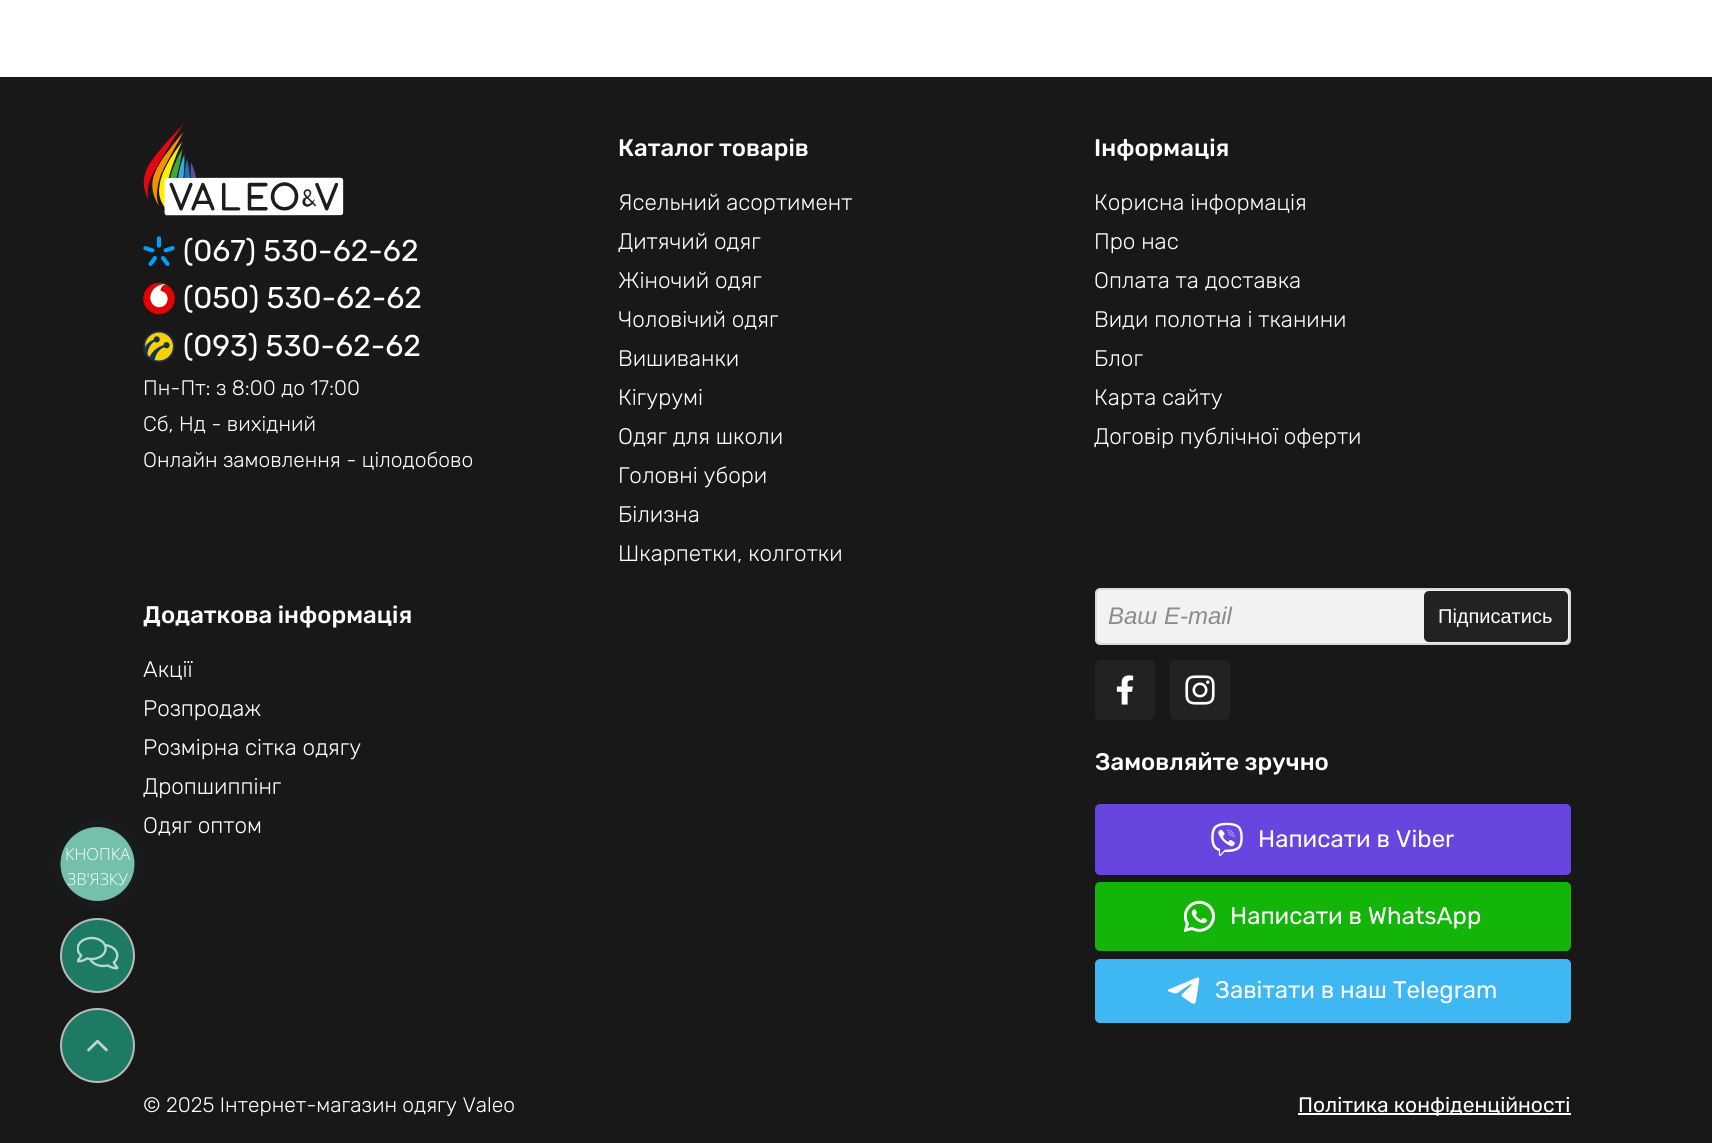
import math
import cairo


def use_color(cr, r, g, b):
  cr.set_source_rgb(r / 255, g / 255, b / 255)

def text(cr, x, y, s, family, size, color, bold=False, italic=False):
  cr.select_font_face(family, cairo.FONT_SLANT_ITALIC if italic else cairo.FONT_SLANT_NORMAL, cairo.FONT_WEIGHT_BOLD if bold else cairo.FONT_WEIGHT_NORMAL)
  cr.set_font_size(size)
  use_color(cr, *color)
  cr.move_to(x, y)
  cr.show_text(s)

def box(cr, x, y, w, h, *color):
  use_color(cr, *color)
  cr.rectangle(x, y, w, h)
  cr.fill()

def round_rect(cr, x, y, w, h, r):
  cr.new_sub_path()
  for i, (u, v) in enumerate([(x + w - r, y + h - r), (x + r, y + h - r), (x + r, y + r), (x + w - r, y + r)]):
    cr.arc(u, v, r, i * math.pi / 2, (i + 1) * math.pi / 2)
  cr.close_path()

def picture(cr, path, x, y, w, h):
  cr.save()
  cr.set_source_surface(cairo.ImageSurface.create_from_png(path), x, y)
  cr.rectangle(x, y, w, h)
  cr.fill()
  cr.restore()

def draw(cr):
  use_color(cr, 255, 255, 255)
  cr.paint()
  box(cr, 0, 77, 1712, 1066, 24, 24, 24)
  picture(cr, "img_01.png", 143, 122, 201, 94)
  picture(cr, "img_02.png", 143, 236, 32, 30)
  picture(cr, "img_03.png", 143, 282, 32, 33)
  picture(cr, "img_04.png", 143, 330, 32, 33)
  use_color(cr, 242, 242, 242)
  round_rect(cr, 1096, 589, 474, 55, 4)
  cr.fill_preserve()
  use_color(cr, 218, 218, 218)
  cr.stroke()
  use_color(cr, 34, 34, 34)
  round_rect(cr, 1424, 591, 144, 51, 5)
  cr.fill()
  round_rect(cr, 1095, 660, 60, 60, 5)
  cr.fill()
  picture(cr, "img_05.png", 1116, 675, 18, 30)
  round_rect(cr, 1170, 660, 60, 60, 5)
  cr.fill()
  picture(cr, "img_06.png", 1185, 675, 30, 30)
  use_color(cr, 105, 69, 224)
  round_rect(cr, 1095, 804, 476, 71, 5)
  cr.fill()
  picture(cr, "img_07.png", 1211, 822, 32, 34)
  use_color(cr, 19, 182, 8)
  round_rect(cr, 1095, 882, 476, 69, 5)
  cr.fill()
  picture(cr, "img_08.png", 1184, 900, 31, 33)
  use_color(cr, 62, 183, 243)
  round_rect(cr, 1095, 959, 476, 64, 5)
  cr.fill()
  picture(cr, "img_09.png", 1167, 977, 33, 27)
  box(cr, 1298, 1113, 273, 2, 255, 255, 255)
  use_color(cr, 29, 122, 100)
  cr.arc(97.5, 955.5, 36.5, 0, 2 * math.pi)
  cr.fill_preserve()
  use_color(cr, 186, 186, 186)
  cr.stroke()
  picture(cr, "img_10.png", 77, 936, 42, 34)
  use_color(cr, 29, 122, 100)
  cr.arc(97.5, 1045.5, 36.5, 0, 2 * math.pi)
  cr.fill_preserve()
  use_color(cr, 186, 186, 186)
  cr.stroke()
  picture(cr, "img_11.png", 87, 1040, 21, 12)
  text(cr, 183, 261, "(067) 530-62-62", "Rubik", 30, (255, 255, 255))
  text(cr, 183, 308, "(050) 530-62-62", "Rubik", 30, (255, 255, 255))
  text(cr, 183, 356, "(093) 530-62-62", "Rubik", 30, (255, 255, 255))
  text(cr, 143, 395, "Пн-Пт: з 8:00 до 17:00", "Rubik Light", 21, (255, 255, 255))
  text(cr, 143, 431, "Сб, Нд - вихідний", "Rubik Light", 21, (255, 255, 255))
  text(cr, 143, 467, "Онлайн замовлення - цілодобово", "Rubik Light", 21, (255, 255, 255))
  text(cr, 618, 156, "Каталог товарів", "Rubik Medium", 24, (255, 255, 255))
  text(cr, 618, 210, "Ясельний асортимент", "Rubik Light", 22.5, (255, 255, 255))
  text(cr, 618, 249, "Дитячий одяг", "Rubik Light", 22.5, (255, 255, 255))
  text(cr, 618, 288, "Жіночий одяг", "Rubik Light", 22.5, (255, 255, 255))
  text(cr, 618, 327, "Чоловічий одяг", "Rubik Light", 22.5, (255, 255, 255))
  text(cr, 618, 366, "Вишиванки", "Rubik Light", 22.5, (255, 255, 255))
  text(cr, 618, 405, "Кігурумі", "Rubik Light", 22.5, (255, 255, 255))
  text(cr, 618, 444, "Одяг для школи", "Rubik Light", 22.5, (255, 255, 255))
  text(cr, 618, 483, "Головні убори", "Rubik Light", 22.5, (255, 255, 255))
  text(cr, 618, 522, "Білизна", "Rubik Light", 22.5, (255, 255, 255))
  text(cr, 618, 561, "Шкарпетки, колготки", "Rubik Light", 22.5, (255, 255, 255))
  text(cr, 1094, 156, "Інформація", "Rubik Medium", 24, (255, 255, 255))
  text(cr, 1094, 210, "Корисна інформація", "Rubik Light", 22.5, (255, 255, 255))
  text(cr, 1094, 249, "Про нас", "Rubik Light", 22.5, (255, 255, 255))
  text(cr, 1094, 288, "Оплата та доставка", "Rubik Light", 22.5, (255, 255, 255))
  text(cr, 1094, 327, "Види полотна і тканини", "Rubik Light", 22.5, (255, 255, 255))
  text(cr, 1094, 366, "Блог", "Rubik Light", 22.5, (255, 255, 255))
  text(cr, 1094, 405, "Карта сайту", "Rubik Light", 22.5, (255, 255, 255))
  text(cr, 1094, 444, "Договір публічної оферти", "Rubik Light", 22.5, (255, 255, 255))
  text(cr, 143, 623, "Додаткова інформація", "Rubik Medium", 24, (255, 255, 255))
  text(cr, 143, 677, "Акції", "Rubik Light", 22.5, (255, 255, 255))
  text(cr, 143, 716, "Розпродаж", "Rubik Light", 22.5, (255, 255, 255))
  text(cr, 143, 755, "Розмірна сітка одягу", "Rubik Light", 22.5, (255, 255, 255))
  text(cr, 143, 794, "Дропшиппінг", "Rubik Light", 22.5, (255, 255, 255))
  text(cr, 143, 833, "Одяг оптом", "Rubik Light", 22.5, (255, 255, 255))
  cr.save()
  cr.rectangle(51, 818, 93, 93)
  cr.clip()
  use_color(cr, 25, 26, 28)
  cr.arc(97.5, 864, 46.5, 0, 2 * math.pi)
  cr.fill()
  cr.restore()
  use_color(cr, 116, 192, 171)
  cr.arc(97.5, 864, 37, 0, 2 * math.pi)
  cr.fill()
  text(cr, 67, 885, "ЗВ'ЯЗКУ", "Open Sans Light", 16.5, (255, 255, 255))
  text(cr, 65, 860, "КНОПКА", "Open Sans Light", 16.5, (255, 255, 255))
  text(cr, 1108, 624, "Ваш E-mail", "Liberation Sans", 24, (139, 139, 139), italic=True)
  text(cr, 1438, 623, "Підписатись", "Liberation Sans", 20, (255, 255, 255))
  text(cr, 1095, 770, "Замовляйте зручно", "Rubik Medium", 24, (255, 255, 255))
  text(cr, 1258, 847, "Написати в Viber", "Rubik", 24, (255, 255, 255))
  text(cr, 1230, 924, "Написати в WhatsApp", "Rubik", 24, (255, 255, 255))
  text(cr, 1215, 998, "Завітати в наш Telegram", "Rubik", 24, (255, 255, 255))
  text(cr, 143, 1112, "© 2025 Інтернет-магазин одягу Valeo", "Rubik Light", 21, (255, 255, 255))
  text(cr, 1298, 1112, "Політика конфіденційності", "Rubik", 21, (255, 255, 255))


surface = cairo.ImageSurface(cairo.FORMAT_RGB24, 1712, 1143)
cr = cairo.Context(surface)
options = cairo.FontOptions()
options.set_hint_metrics(cairo.HINT_METRICS_OFF)
options.set_hint_style(cairo.HINT_STYLE_NONE)
cr.set_font_options(options)
cr.set_miter_limit(4)
draw(cr)
surface.write_to_png("out.png")
